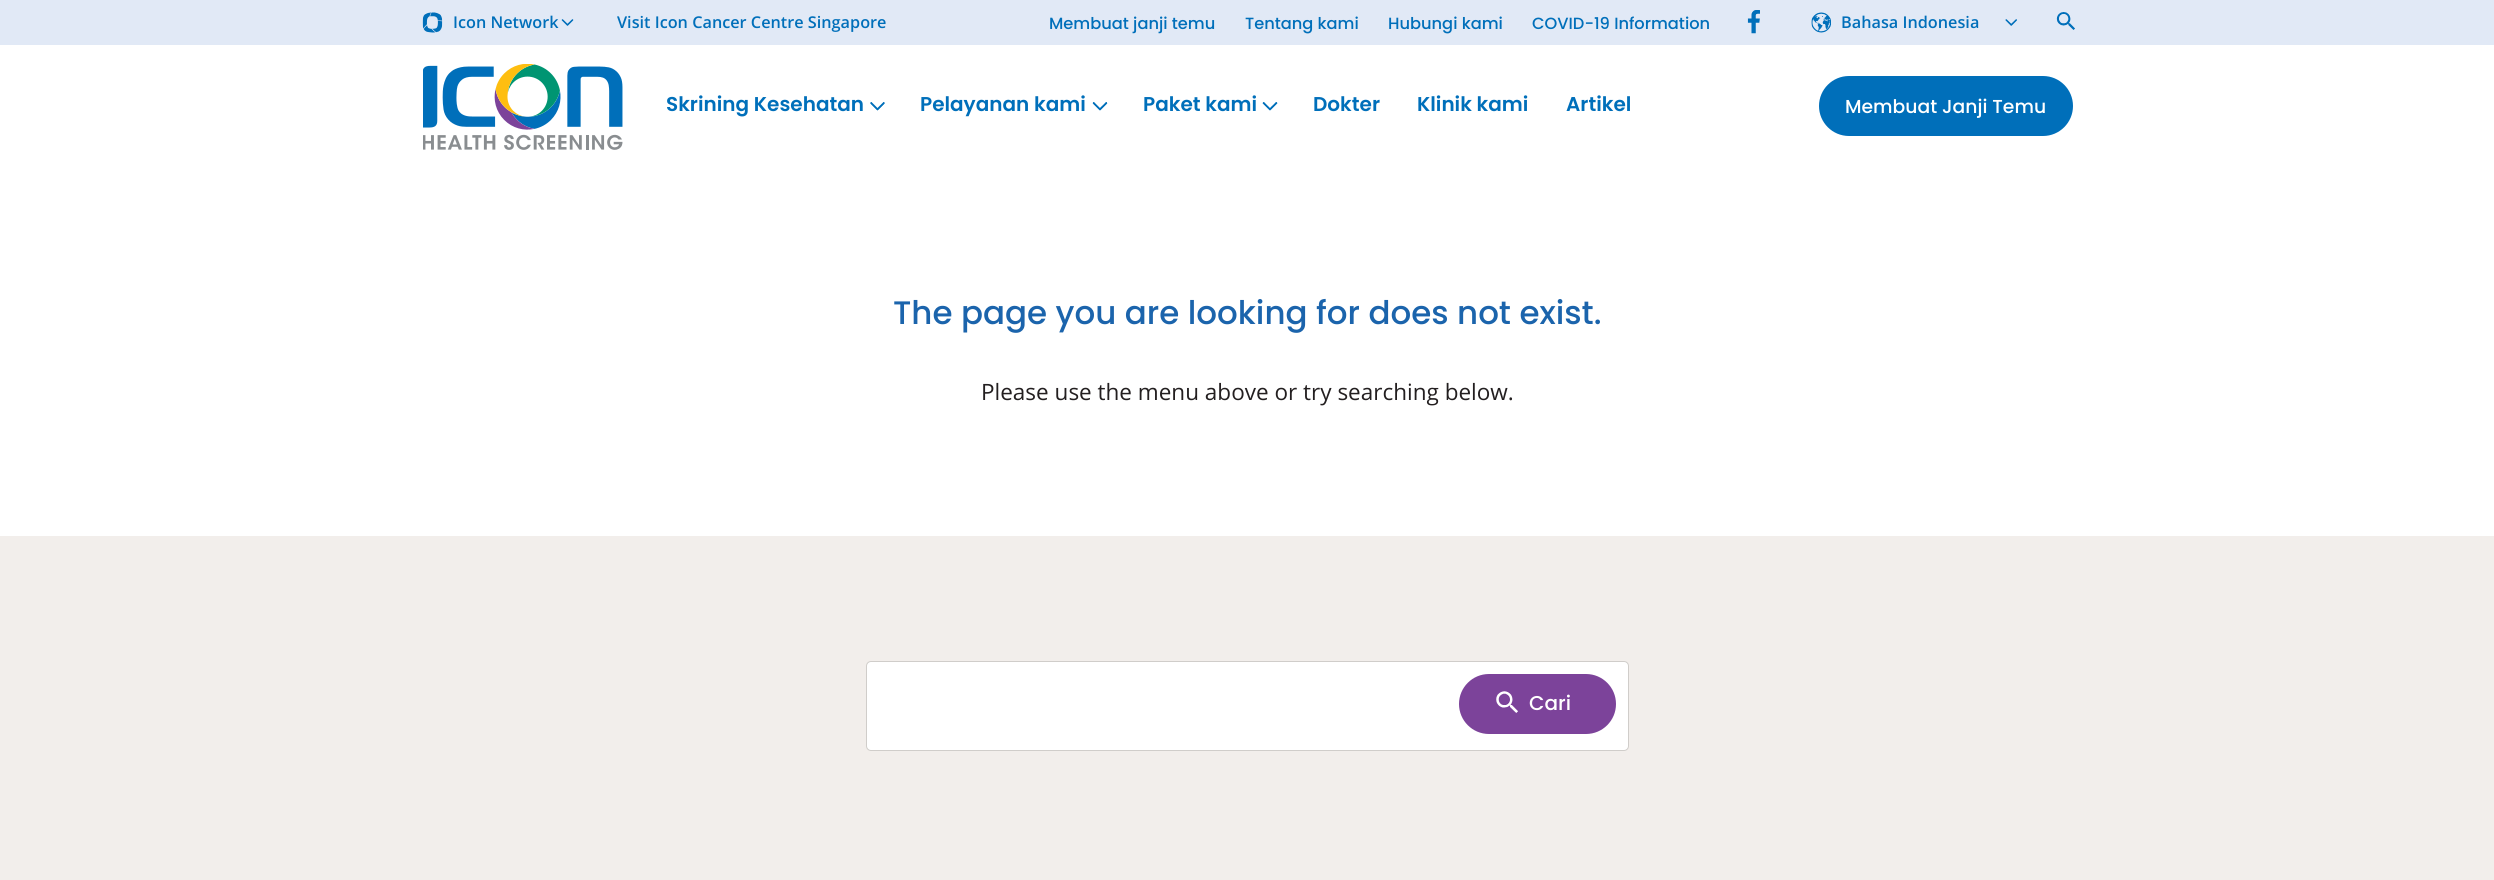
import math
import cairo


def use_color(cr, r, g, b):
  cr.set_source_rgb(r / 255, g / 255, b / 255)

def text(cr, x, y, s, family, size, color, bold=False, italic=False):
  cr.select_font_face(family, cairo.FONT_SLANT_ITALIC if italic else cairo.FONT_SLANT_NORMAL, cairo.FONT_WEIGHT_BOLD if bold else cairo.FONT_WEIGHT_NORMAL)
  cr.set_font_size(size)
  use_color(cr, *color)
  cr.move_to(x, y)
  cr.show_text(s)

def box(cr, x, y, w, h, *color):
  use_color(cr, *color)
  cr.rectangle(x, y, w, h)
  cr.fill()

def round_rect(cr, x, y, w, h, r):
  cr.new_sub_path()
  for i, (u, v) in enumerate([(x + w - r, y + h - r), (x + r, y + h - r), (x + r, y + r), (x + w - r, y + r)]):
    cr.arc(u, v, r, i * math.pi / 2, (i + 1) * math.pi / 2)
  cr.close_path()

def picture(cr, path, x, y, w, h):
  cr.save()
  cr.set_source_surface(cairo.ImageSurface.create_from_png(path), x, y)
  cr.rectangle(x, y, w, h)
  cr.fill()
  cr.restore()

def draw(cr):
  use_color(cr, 255, 255, 255)
  cr.paint()
  box(cr, 0, 0, 2494, 45, 225, 233, 246)
  picture(cr, "img_01.png", 422, 12, 21, 21)
  picture(cr, "img_02.png", 561, 19, 13, 7)
  picture(cr, "img_03.png", 1747, 10, 13, 24)
  picture(cr, "img_04.png", 1811, 12, 20, 21)
  picture(cr, "img_05.png", 2005, 19, 12, 7)
  picture(cr, "img_06.png", 2056, 12, 19, 18)
  picture(cr, "img_07.png", 423, 64, 200, 86)
  picture(cr, "img_08.png", 870, 102, 15, 9)
  picture(cr, "img_09.png", 1092, 102, 16, 9)
  picture(cr, "img_10.png", 1262, 102, 16, 9)
  use_color(cr, 0, 111, 186)
  round_rect(cr, 1819, 76, 254, 60, 30)
  cr.fill()
  box(cr, 0, 536, 2494, 344, 242, 238, 235)
  use_color(cr, 255, 255, 255)
  round_rect(cr, 866.5, 661.5, 762, 89, 4.5)
  cr.fill_preserve()
  use_color(cr, 208, 205, 202)
  cr.set_line_width(1)
  cr.stroke()
  use_color(cr, 124, 67, 154)
  round_rect(cr, 1459, 674, 157, 60, 30)
  cr.fill()
  picture(cr, "img_11.png", 1496, 691, 22, 22)
  text(cr, 453, 28, "Icon Network", "Open Sans SemiBold", 16.25, (0, 111, 186))
  text(cr, 617, 28, "Visit Icon Cancer Centre Singapore", "Open Sans SemiBold", 16.25, (0, 111, 186))
  text(cr, 1049, 29, "Membuat janji temu", "Poppins Medium", 16.25, (0, 111, 186))
  text(cr, 1245, 29, "Tentang kami", "Poppins Medium", 16.25, (0, 111, 186))
  text(cr, 1388, 29, "Hubungi kami", "Poppins Medium", 16.25, (0, 111, 186))
  text(cr, 1532, 29, "COVID-19 Information", "Poppins Medium", 16.25, (0, 111, 186))
  text(cr, 1841, 28, "Bahasa Indonesia", "Open Sans SemiBold", 16.25, (0, 111, 186))
  text(cr, 666, 111, "Skrining Kesehatan", "Poppins SemiBold", 20, (0, 111, 186))
  text(cr, 920, 111, "Pelayanan kami", "Poppins SemiBold", 20, (0, 111, 186))
  text(cr, 1143, 111, "Paket kami", "Poppins SemiBold", 20, (0, 111, 186))
  text(cr, 1313, 111, "Dokter", "Poppins SemiBold", 20, (0, 111, 186))
  text(cr, 1417, 111, "Klinik kami", "Poppins SemiBold", 20, (0, 111, 186))
  text(cr, 1566, 111, "Artikel", "Poppins SemiBold", 20, (0, 111, 186))
  text(cr, 1845, 113, "Membuat Janji Temu", "Poppins Medium", 18.75, (255, 255, 255))
  text(cr, 893, 324, "The page you are looking for does not exist.", "Poppins Medium", 32.5, (27, 100, 172))
  text(cr, 981, 400, "Please use the menu above or try searching below.", "Open Sans", 22.5, (35, 31, 32))
  text(cr, 1529, 710, "Cari", "Poppins Medium", 20, (255, 255, 255))


surface = cairo.ImageSurface(cairo.FORMAT_RGB24, 2494, 880)
cr = cairo.Context(surface)
options = cairo.FontOptions()
options.set_hint_metrics(cairo.HINT_METRICS_OFF)
options.set_hint_style(cairo.HINT_STYLE_NONE)
cr.set_font_options(options)
cr.set_miter_limit(4)
draw(cr)
surface.write_to_png("out.png")
